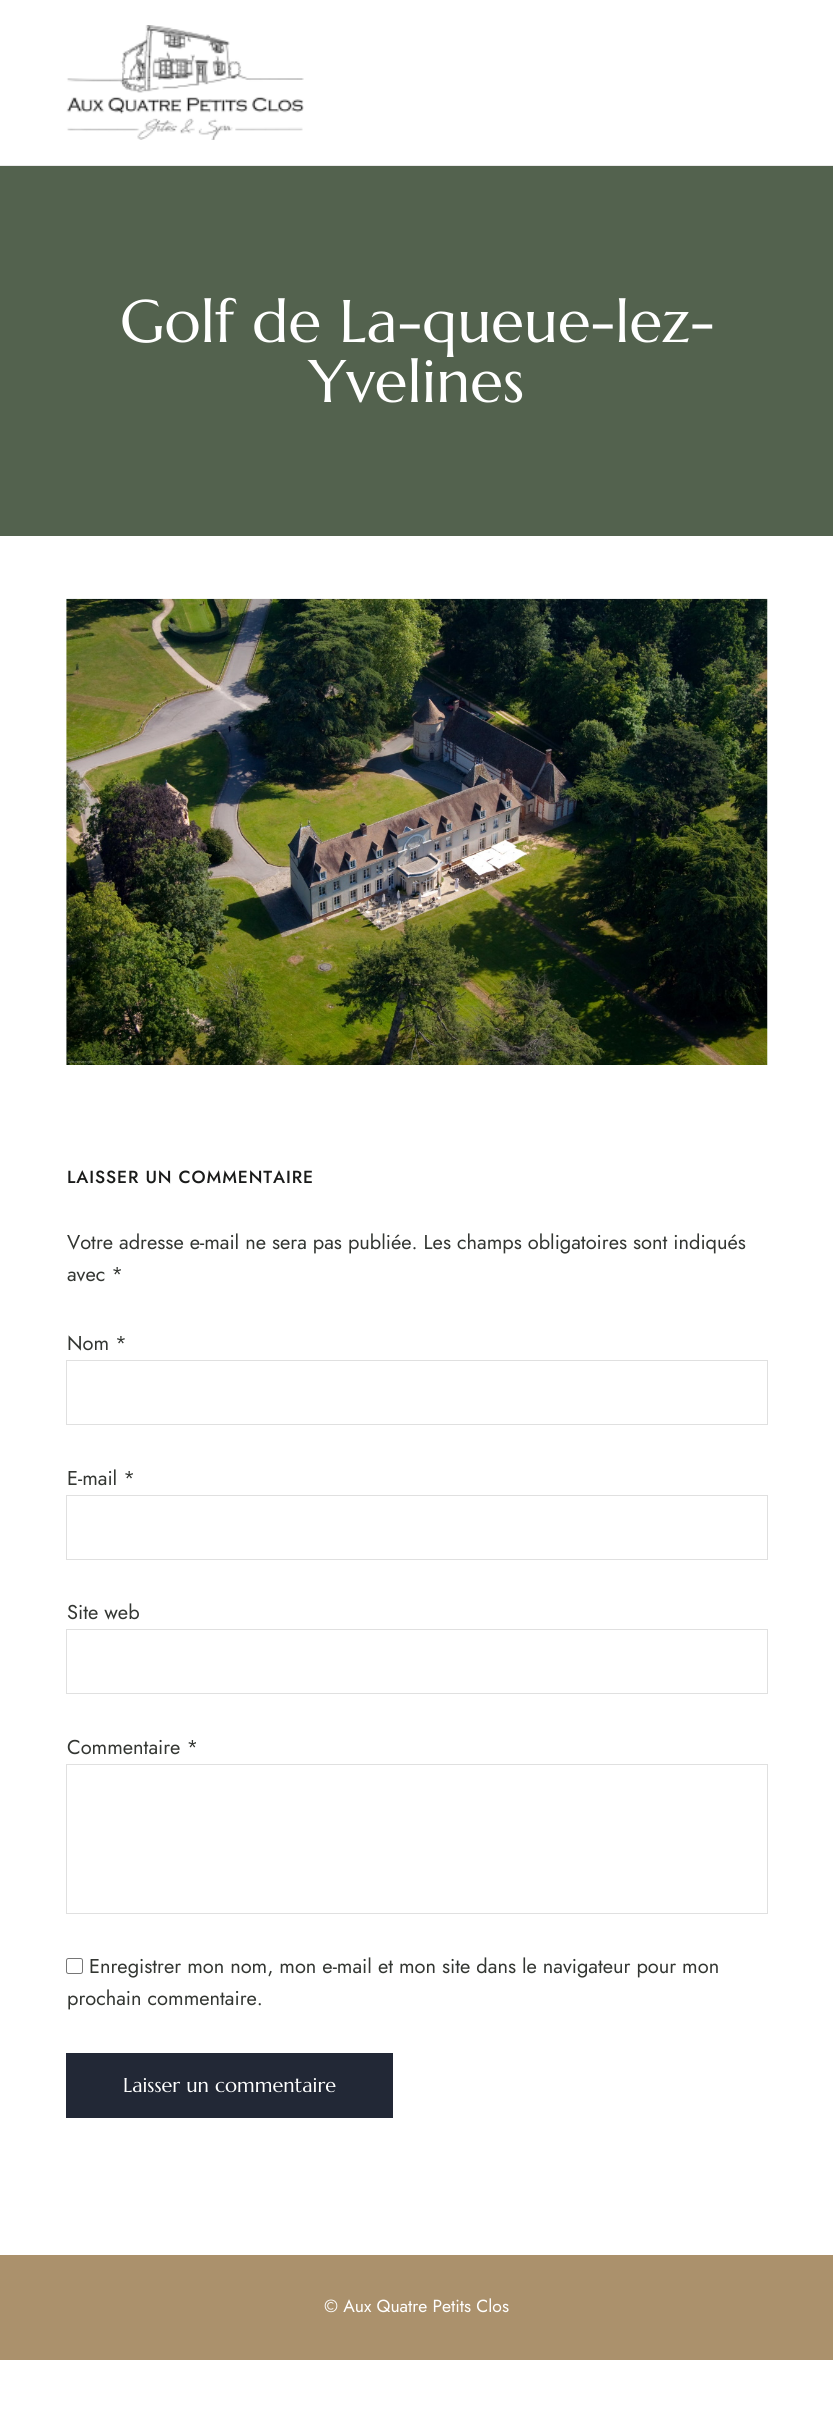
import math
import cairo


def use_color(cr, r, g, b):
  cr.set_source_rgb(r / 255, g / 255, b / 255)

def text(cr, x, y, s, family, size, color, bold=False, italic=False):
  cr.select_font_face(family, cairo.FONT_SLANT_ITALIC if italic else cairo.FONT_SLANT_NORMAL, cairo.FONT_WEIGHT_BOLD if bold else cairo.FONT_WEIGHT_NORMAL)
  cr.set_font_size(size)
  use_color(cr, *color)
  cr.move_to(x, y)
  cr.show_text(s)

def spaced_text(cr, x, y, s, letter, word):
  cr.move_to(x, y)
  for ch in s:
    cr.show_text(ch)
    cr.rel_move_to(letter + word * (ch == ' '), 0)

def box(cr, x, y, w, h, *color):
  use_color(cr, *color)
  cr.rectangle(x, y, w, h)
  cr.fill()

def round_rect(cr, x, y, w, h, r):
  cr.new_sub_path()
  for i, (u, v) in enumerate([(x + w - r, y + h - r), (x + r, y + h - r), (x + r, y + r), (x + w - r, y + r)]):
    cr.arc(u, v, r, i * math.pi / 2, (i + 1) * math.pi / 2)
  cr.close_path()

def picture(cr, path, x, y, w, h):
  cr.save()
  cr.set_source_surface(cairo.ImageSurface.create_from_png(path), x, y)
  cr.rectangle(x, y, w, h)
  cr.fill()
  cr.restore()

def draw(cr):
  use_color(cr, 255, 255, 255)
  cr.paint()
  box(cr, 0, 165, 833, 1, 235, 235, 235)
  picture(cr, "img_01.png", 66, 25, 238, 115)
  box(cr, 0, 166, 833, 370, 83, 98, 78)
  picture(cr, "img_02.png", 66, 598, 702, 467)
  cr.rectangle(66.5, 1360.5, 701, 64)
  use_color(cr, 224, 224, 224)
  cr.set_line_width(1)
  cr.stroke()
  cr.rectangle(66.5, 1495.5, 701, 64)
  cr.stroke()
  cr.rectangle(66.5, 1629.5, 701, 64)
  cr.stroke()
  cr.rectangle(66.5, 1764.5, 701, 149)
  cr.stroke()
  round_rect(cr, 66.5, 1958.5, 16, 15, 2)
  use_color(cr, 118, 118, 118)
  cr.stroke()
  box(cr, 66, 2053, 327, 65, 34, 40, 54)
  box(cr, 0, 2255, 833, 105, 171, 145, 108)
  text(cr, 120, 342, "Golf de La-queue-lez-", "Marcellus", 60, (255, 255, 255))
  text(cr, 309, 402, "Yvelines", "Marcellus", 60, (255, 255, 255))
  cr.select_font_face("Jost Medium")
  cr.set_font_size(17.5)
  use_color(cr, 26, 27, 26)
  spaced_text(cr, 67, 1183, "LAISSER UN COMMENTAIRE", 0.9, 0)
  text(cr, 67, 1249, "Votre adresse e-mail ne sera pas publiée. Les champs obligatoires sont indiqués", "Jost", 20, (51, 54, 50))
  text(cr, 67, 1281, "avec *", "Jost", 20, (51, 54, 50))
  text(cr, 67, 1350, "Nom *", "Jost", 20, (51, 54, 50))
  text(cr, 67, 1485, "E-mail *", "Jost", 20, (51, 54, 50))
  text(cr, 67, 1619, "Site web", "Jost", 20, (51, 54, 50))
  text(cr, 67, 1754, "Commentaire *", "Jost", 20, (51, 54, 50))
  text(cr, 89, 1973, "Enregistrer mon nom, mon e-mail et mon site dans le navigateur pour mon", "Jost", 20, (51, 54, 50))
  text(cr, 67, 2005, "prochain commentaire.", "Jost", 20, (51, 54, 50))
  text(cr, 123, 2092, "Laisser un commentaire", "Marcellus", 20, (255, 255, 255))
  text(cr, 324, 2312, "© Aux Quatre Petits Clos", "Jost", 17.5, (255, 255, 255))


surface = cairo.ImageSurface(cairo.FORMAT_RGB24, 833, 2424)
cr = cairo.Context(surface)
options = cairo.FontOptions()
options.set_hint_metrics(cairo.HINT_METRICS_OFF)
options.set_hint_style(cairo.HINT_STYLE_NONE)
cr.set_font_options(options)
cr.set_miter_limit(4)
draw(cr)
surface.write_to_png("out.png")
